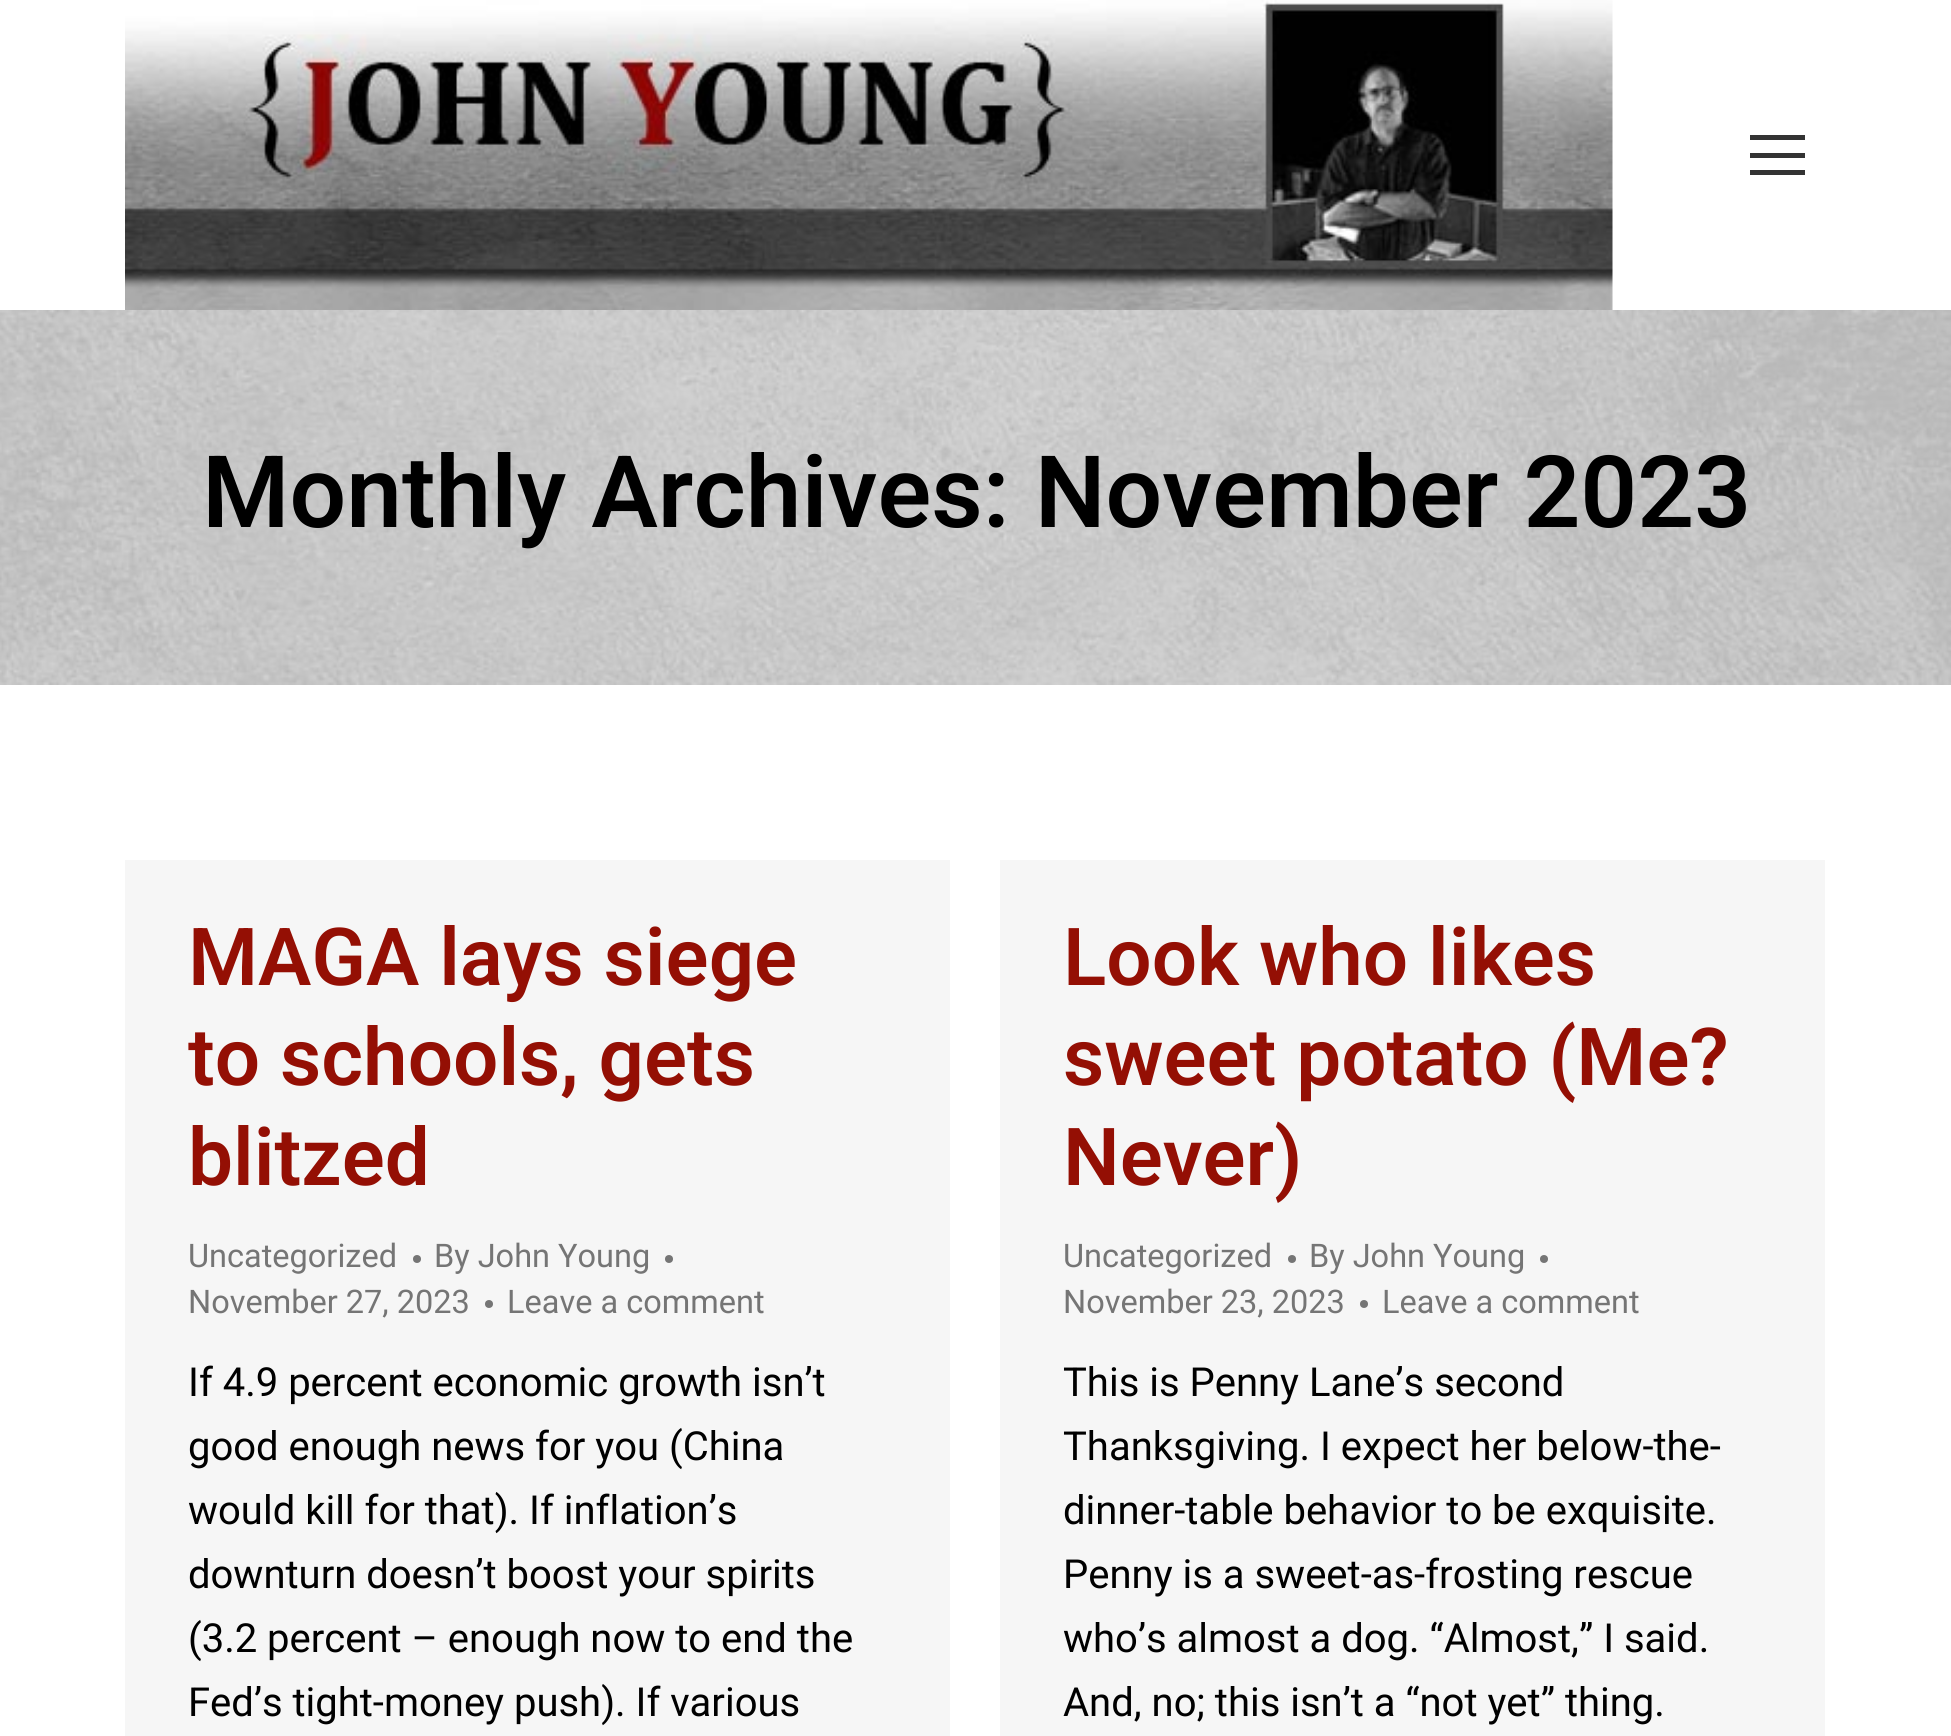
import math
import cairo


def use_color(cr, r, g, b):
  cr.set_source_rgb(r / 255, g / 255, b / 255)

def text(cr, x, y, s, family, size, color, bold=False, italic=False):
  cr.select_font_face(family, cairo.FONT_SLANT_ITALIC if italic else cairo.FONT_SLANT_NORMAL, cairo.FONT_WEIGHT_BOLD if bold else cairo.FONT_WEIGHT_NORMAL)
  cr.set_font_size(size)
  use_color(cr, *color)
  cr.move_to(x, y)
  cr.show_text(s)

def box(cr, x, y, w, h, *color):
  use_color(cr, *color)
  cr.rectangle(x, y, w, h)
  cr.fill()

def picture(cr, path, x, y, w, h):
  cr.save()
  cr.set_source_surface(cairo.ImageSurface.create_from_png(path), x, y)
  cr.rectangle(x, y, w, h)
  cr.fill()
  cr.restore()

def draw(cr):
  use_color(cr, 255, 255, 255)
  cr.paint()
  picture(cr, "img_01.png", 125, 0, 1488, 310)
  box(cr, 1750, 135, 55, 5, 51, 51, 51)
  box(cr, 1750, 153, 55, 5, 51, 51, 51)
  box(cr, 1750, 170, 55, 5, 51, 51, 51)
  picture(cr, "img_02.png", 0, 310, 1951, 375)
  box(cr, 125, 860, 825, 876, 246, 246, 246)
  use_color(cr, 117, 117, 117)
  cr.arc(417, 1259, 4, 0, 2 * math.pi)
  cr.fill()
  cr.arc(669, 1259, 4, 0, 2 * math.pi)
  cr.fill()
  cr.arc(489, 1304, 4, 0, 2 * math.pi)
  cr.fill()
  box(cr, 1000, 860, 825, 876, 246, 246, 246)
  use_color(cr, 117, 117, 117)
  cr.arc(1292, 1259, 4, 0, 2 * math.pi)
  cr.fill()
  cr.arc(1544, 1259, 4, 0, 2 * math.pi)
  cr.fill()
  cr.arc(1364, 1304, 4, 0, 2 * math.pi)
  cr.fill()
  text(cr, 202, 527, "Monthly Archives: November 2023", "Heebo SemiBold", 100, (0, 0, 0))
  text(cr, 188, 985, "MAGA lays siege", "Heebo SemiBold", 80, (148, 15, 4))
  text(cr, 188, 1085, "to schools, gets", "Heebo SemiBold", 80, (148, 15, 4))
  text(cr, 188, 1185, "blitzed", "Heebo SemiBold", 80, (148, 15, 4))
  text(cr, 188, 1267, "Uncategorized", "Roboto", 32.5, (117, 117, 117))
  text(cr, 434, 1267, "By John Young", "Roboto", 32.5, (117, 117, 117))
  text(cr, 188, 1313, "November 27, 2023", "Roboto", 32.5, (117, 117, 117))
  text(cr, 507, 1313, "Leave a comment", "Roboto", 32.5, (117, 117, 117))
  text(cr, 188, 1396, "If 4.9 percent economic growth isn’t", "Roboto", 40, (0, 0, 0))
  text(cr, 188, 1460, "good enough news for you (China", "Roboto", 40, (0, 0, 0))
  text(cr, 188, 1524, "would kill for that). If inflation’s", "Roboto", 40, (0, 0, 0))
  text(cr, 188, 1588, "downturn doesn’t boost your spirits", "Roboto", 40, (0, 0, 0))
  text(cr, 188, 1652, "(3.2 percent – enough now to end the", "Roboto", 40, (0, 0, 0))
  text(cr, 188, 1716, "Fed’s tight-money push). If various", "Roboto", 40, (0, 0, 0))
  text(cr, 1063, 985, "Look who likes", "Heebo SemiBold", 80, (148, 15, 4))
  text(cr, 1063, 1085, "sweet potato (Me?", "Heebo SemiBold", 80, (148, 15, 4))
  text(cr, 1063, 1185, "Never)", "Heebo SemiBold", 80, (148, 15, 4))
  text(cr, 1063, 1267, "Uncategorized", "Roboto", 32.5, (117, 117, 117))
  text(cr, 1309, 1267, "By John Young", "Roboto", 32.5, (117, 117, 117))
  text(cr, 1063, 1313, "November 23, 2023", "Roboto", 32.5, (117, 117, 117))
  text(cr, 1382, 1313, "Leave a comment", "Roboto", 32.5, (117, 117, 117))
  text(cr, 1063, 1396, "This is Penny Lane’s second", "Roboto", 40, (0, 0, 0))
  text(cr, 1063, 1460, "Thanksgiving. I expect her below-the-", "Roboto", 40, (0, 0, 0))
  text(cr, 1063, 1524, "dinner-table behavior to be exquisite.", "Roboto", 40, (0, 0, 0))
  text(cr, 1063, 1588, "Penny is a sweet-as-frosting rescue", "Roboto", 40, (0, 0, 0))
  text(cr, 1063, 1652, "who’s almost a dog. “Almost,” I said.", "Roboto", 40, (0, 0, 0))
  text(cr, 1063, 1716, "And, no; this isn’t a “not yet” thing.", "Roboto", 40, (0, 0, 0))


surface = cairo.ImageSurface(cairo.FORMAT_RGB24, 1951, 1736)
cr = cairo.Context(surface)
options = cairo.FontOptions()
options.set_hint_metrics(cairo.HINT_METRICS_OFF)
options.set_hint_style(cairo.HINT_STYLE_NONE)
cr.set_font_options(options)
cr.set_miter_limit(4)
draw(cr)
surface.write_to_png("out.png")
